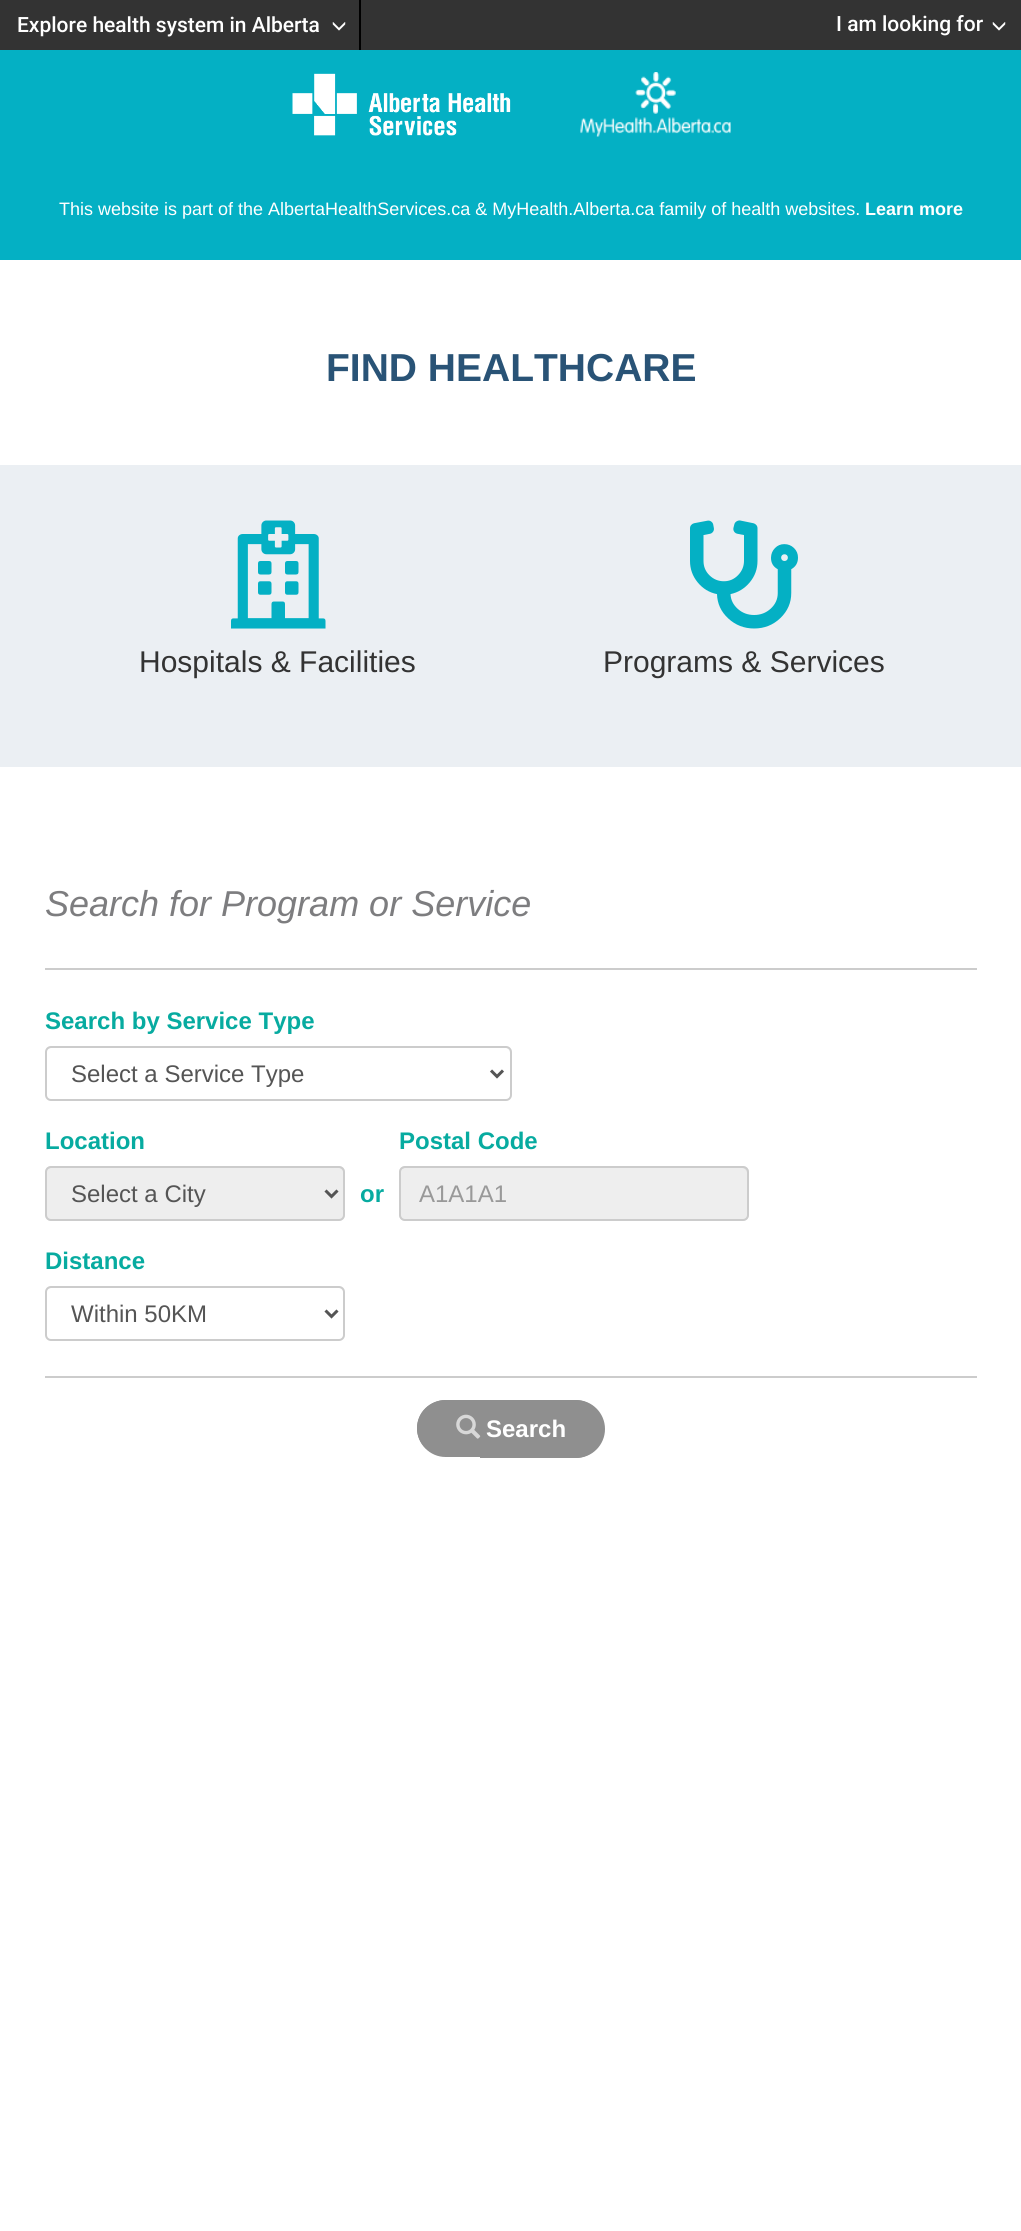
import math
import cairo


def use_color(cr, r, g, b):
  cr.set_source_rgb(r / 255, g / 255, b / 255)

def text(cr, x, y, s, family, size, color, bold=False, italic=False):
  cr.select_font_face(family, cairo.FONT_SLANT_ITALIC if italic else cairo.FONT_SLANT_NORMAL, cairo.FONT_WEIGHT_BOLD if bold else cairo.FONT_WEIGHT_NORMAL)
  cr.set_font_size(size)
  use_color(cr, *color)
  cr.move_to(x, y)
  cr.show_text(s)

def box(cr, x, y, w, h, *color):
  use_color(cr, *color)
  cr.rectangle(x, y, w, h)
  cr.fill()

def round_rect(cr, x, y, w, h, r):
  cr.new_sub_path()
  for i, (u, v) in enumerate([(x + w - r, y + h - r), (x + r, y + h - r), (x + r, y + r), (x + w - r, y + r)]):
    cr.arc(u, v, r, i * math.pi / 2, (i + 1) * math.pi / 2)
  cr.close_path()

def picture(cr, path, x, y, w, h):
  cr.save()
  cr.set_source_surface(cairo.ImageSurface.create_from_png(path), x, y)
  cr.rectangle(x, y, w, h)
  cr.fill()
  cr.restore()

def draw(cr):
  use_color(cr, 255, 255, 255)
  cr.paint()
  box(cr, 0, 0, 1021, 50, 51, 51, 51)
  box(cr, 359, 0, 2, 50, 0, 0, 0)
  picture(cr, "img_01.png", 332, 22, 14, 9)
  picture(cr, "img_01.png", 992, 22, 14, 9)
  box(cr, 0, 50, 1021, 210, 4, 176, 196)
  picture(cr, "img_02.png", 292, 73, 219, 63)
  picture(cr, "img_03.png", 580, 72, 151, 65)
  box(cr, 0, 465, 1021, 302, 235, 239, 243)
  picture(cr, "img_04.png", 231, 520, 95, 109)
  picture(cr, "img_05.png", 690, 520, 108, 109)
  box(cr, 45, 968, 932, 2, 204, 204, 204)
  use_color(cr, 236, 236, 236)
  cr.new_path()
  cr.move_to(51, 1048)
  cr.line_to(506, 1048)
  cr.curve_to(508, 1048, 510, 1051, 510, 1053)
  cr.line_to(510, 1052)
  cr.curve_to(510, 1049, 508, 1047, 505, 1047)
  cr.line_to(52, 1047)
  cr.curve_to(50, 1047, 48, 1048, 47, 1050)
  cr.curve_to(48, 1049, 50, 1048, 51, 1048)
  cr.close_path()
  cr.fill()
  round_rect(cr, 46, 1047, 465, 53, 5)
  use_color(cr, 204, 204, 204)
  cr.stroke()
  cr.new_path()
  cr.move_to(491, 1070.5)
  cr.line_to(497, 1076.5)
  cr.line_to(503, 1070.5)
  use_color(cr, 85, 85, 85)
  cr.set_line_width(3)
  cr.stroke()
  use_color(cr, 238, 238, 238)
  round_rect(cr, 45, 1166, 300, 55, 6)
  cr.fill()
  use_color(cr, 220, 220, 220)
  cr.new_path()
  cr.move_to(51, 1168)
  cr.line_to(339, 1168)
  cr.curve_to(341, 1168, 344, 1171, 344, 1173)
  cr.line_to(344, 1172)
  cr.curve_to(344, 1169, 342, 1167, 339, 1167)
  cr.line_to(52, 1167)
  cr.curve_to(50, 1167, 48, 1168, 47, 1170)
  cr.curve_to(48, 1169, 50, 1168, 51, 1168)
  cr.close_path()
  cr.fill()
  round_rect(cr, 46, 1167, 298, 53, 5)
  use_color(cr, 204, 204, 204)
  cr.set_line_width(2)
  cr.stroke()
  cr.new_path()
  cr.move_to(325.5, 1190.5)
  cr.line_to(331.5, 1196.5)
  cr.line_to(337.5, 1190.5)
  use_color(cr, 85, 85, 85)
  cr.set_line_width(3)
  cr.stroke()
  use_color(cr, 238, 238, 238)
  round_rect(cr, 399, 1166, 350, 55, 6)
  cr.fill()
  use_color(cr, 220, 220, 220)
  cr.new_path()
  cr.move_to(405, 1168)
  cr.line_to(742, 1168)
  cr.curve_to(745, 1168, 747, 1171, 747, 1173)
  cr.line_to(747, 1172)
  cr.curve_to(747, 1169, 745, 1167, 742, 1167)
  cr.line_to(406, 1167)
  cr.curve_to(404, 1167, 402, 1168, 401, 1170)
  cr.curve_to(402, 1169, 404, 1168, 405, 1168)
  cr.close_path()
  cr.fill()
  round_rect(cr, 400, 1167, 348, 53, 5)
  use_color(cr, 204, 204, 204)
  cr.set_line_width(2)
  cr.stroke()
  use_color(cr, 236, 236, 236)
  cr.new_path()
  cr.move_to(51, 1288)
  cr.line_to(339, 1288)
  cr.curve_to(341, 1288, 344, 1291, 344, 1293)
  cr.line_to(344, 1292)
  cr.curve_to(344, 1289, 342, 1287, 339, 1287)
  cr.line_to(52, 1287)
  cr.curve_to(50, 1287, 48, 1288, 47, 1290)
  cr.curve_to(48, 1289, 50, 1288, 51, 1288)
  cr.close_path()
  cr.fill()
  round_rect(cr, 46, 1287, 298, 53, 5)
  use_color(cr, 204, 204, 204)
  cr.stroke()
  cr.new_path()
  cr.move_to(325.5, 1310.5)
  cr.line_to(331.5, 1316.5)
  cr.line_to(337.5, 1310.5)
  use_color(cr, 85, 85, 85)
  cr.set_line_width(3)
  cr.stroke()
  box(cr, 45, 1376, 932, 2, 204, 204, 204)
  use_color(cr, 143, 143, 143)
  cr.new_path()
  cr.move_to(445.5, 1400)
  cr.line_to(480, 1400)
  cr.line_to(480, 1457)
  cr.line_to(445.5, 1457)
  cr.curve_to(430, 1457, 417, 1444, 417, 1428.5)
  cr.curve_to(417, 1413, 430, 1400, 445.5, 1400)
  cr.close_path()
  cr.fill()
  cr.set_fill_rule(cairo.FILL_RULE_EVEN_ODD)
  cr.new_path()
  cr.move_to(446, 1400)
  cr.line_to(480, 1400)
  cr.line_to(480, 1456)
  cr.line_to(446, 1456)
  cr.curve_to(430, 1456, 417, 1444, 417, 1428)
  cr.curve_to(417, 1412, 430, 1400, 446, 1400)
  cr.close_path()
  cr.move_to(446, 1401)
  cr.line_to(480, 1401)
  cr.line_to(480, 1455)
  cr.line_to(446, 1455)
  cr.curve_to(431, 1455, 418, 1443, 418, 1428)
  cr.curve_to(418, 1413, 431, 1401, 446, 1401)
  cr.close_path()
  cr.fill()
  cr.new_path()
  cr.move_to(480, 1400)
  cr.line_to(576, 1400)
  cr.curve_to(592, 1400, 605, 1413, 605, 1429)
  cr.curve_to(605, 1445, 592, 1458, 576, 1458)
  cr.line_to(480, 1458)
  cr.close_path()
  cr.fill()
  cr.new_path()
  cr.move_to(480, 1400)
  cr.line_to(575, 1400)
  cr.curve_to(591, 1400, 604, 1413, 604, 1429)
  cr.curve_to(604, 1445, 591, 1458, 575, 1458)
  cr.line_to(480, 1458)
  cr.close_path()
  cr.move_to(480, 1401)
  cr.line_to(575, 1401)
  cr.curve_to(591, 1401, 603, 1413, 603, 1429)
  cr.curve_to(603, 1444, 591, 1456, 575, 1456)
  cr.line_to(480, 1456)
  cr.close_path()
  cr.fill()
  picture(cr, "img_06.png", 456, 1414, 25, 25)
  text(cr, 17, 32, "Explore health system in Alberta", "Roboto Medium", 21, (255, 255, 255))
  text(cr, 836, 31, "I am looking for", "Roboto Medium", 21, (255, 255, 255))
  text(cr, 59, 215, "This website is part of the AlbertaHealthServices.ca & MyHealth.Alberta.ca family of health websites.", "Liberation Sans", 18, (255, 255, 255))
  text(cr, 865, 215, "Learn more", "Liberation Sans", 18, (255, 255, 255), bold=True)
  text(cr, 326, 381, "FIND HEALTHCARE", "Liberation Sans", 39, (41, 83, 118), bold=True)
  text(cr, 139, 672, "Hospitals & Facilities", "Liberation Sans", 30, (51, 51, 51))
  text(cr, 603, 672, "Programs & Services", "Liberation Sans", 30, (51, 51, 51))
  text(cr, 45, 916, "Search for Program or Service", "Liberation Sans", 36, (125, 125, 127), italic=True)
  text(cr, 45, 1029, "Search by Service Type", "Liberation Sans", 24, (7, 171, 160), bold=True)
  text(cr, 71, 1082, "Select a Service Type", "Liberation Sans", 24, (85, 85, 85))
  text(cr, 45, 1149, "Location", "Liberation Sans", 24, (7, 171, 160), bold=True)
  text(cr, 71, 1202, "Select a City", "Liberation Sans", 24, (85, 85, 85))
  text(cr, 360, 1202, "or", "Liberation Sans", 24, (7, 171, 160), bold=True)
  text(cr, 399, 1149, "Postal Code", "Liberation Sans", 24, (7, 171, 160), bold=True)
  text(cr, 419, 1202, "A1A1A1", "Liberation Sans", 24, (153, 153, 153))
  text(cr, 45, 1269, "Distance", "Liberation Sans", 24, (7, 171, 160), bold=True)
  text(cr, 71, 1322, "Within 50KM", "Liberation Sans", 24, (85, 85, 85))
  text(cr, 486, 1437, "Search", "Liberation Sans", 24, (255, 255, 255), bold=True)


surface = cairo.ImageSurface(cairo.FORMAT_RGB24, 1021, 2231)
cr = cairo.Context(surface)
options = cairo.FontOptions()
options.set_hint_metrics(cairo.HINT_METRICS_OFF)
options.set_hint_style(cairo.HINT_STYLE_NONE)
cr.set_font_options(options)
cr.set_miter_limit(4)
draw(cr)
surface.write_to_png("out.png")
